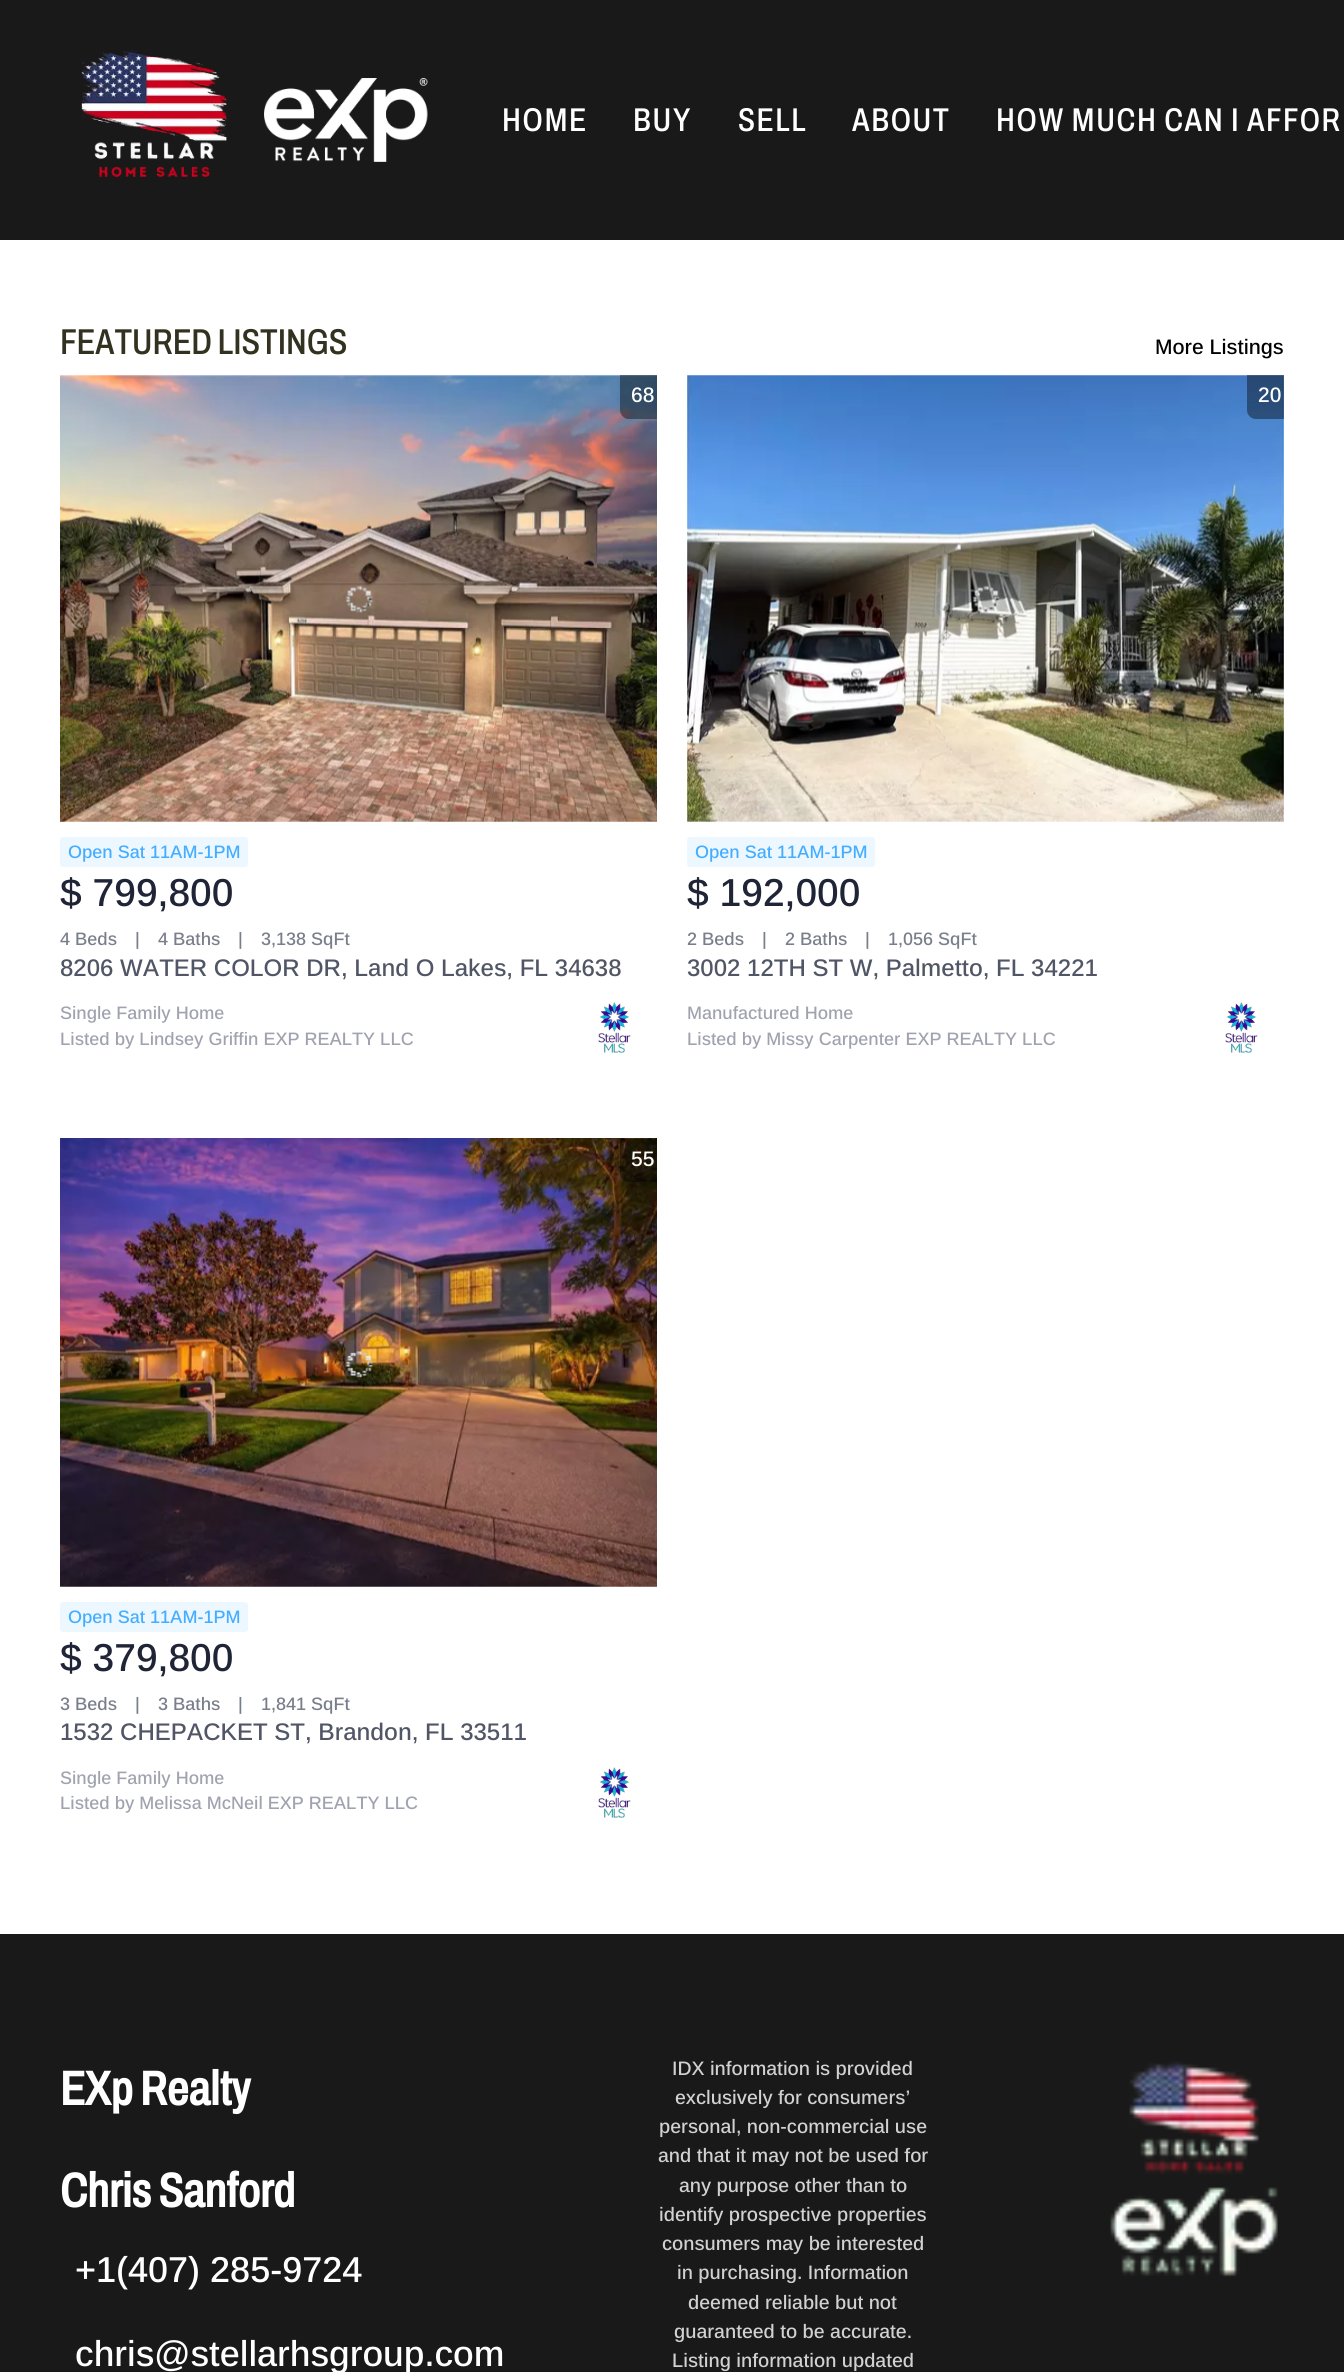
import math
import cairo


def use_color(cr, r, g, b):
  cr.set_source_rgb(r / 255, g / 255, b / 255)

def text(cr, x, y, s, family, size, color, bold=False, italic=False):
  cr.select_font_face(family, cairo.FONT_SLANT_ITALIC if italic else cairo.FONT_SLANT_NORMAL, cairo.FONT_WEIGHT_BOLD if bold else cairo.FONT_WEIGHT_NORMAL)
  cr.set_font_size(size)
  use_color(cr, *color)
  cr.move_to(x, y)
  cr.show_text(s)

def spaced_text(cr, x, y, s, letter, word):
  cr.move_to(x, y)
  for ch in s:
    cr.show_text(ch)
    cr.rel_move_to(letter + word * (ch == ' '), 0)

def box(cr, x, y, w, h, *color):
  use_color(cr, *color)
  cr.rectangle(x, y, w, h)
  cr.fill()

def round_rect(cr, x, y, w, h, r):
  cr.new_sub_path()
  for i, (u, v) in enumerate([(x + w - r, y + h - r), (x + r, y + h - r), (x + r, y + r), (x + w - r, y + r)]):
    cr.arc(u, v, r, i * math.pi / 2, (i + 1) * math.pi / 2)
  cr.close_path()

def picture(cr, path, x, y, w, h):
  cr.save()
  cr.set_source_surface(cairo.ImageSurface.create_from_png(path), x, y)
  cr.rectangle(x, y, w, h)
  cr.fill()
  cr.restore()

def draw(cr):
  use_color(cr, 255, 255, 255)
  cr.paint()
  box(cr, 0, 0, 1344, 240, 25, 25, 25)
  picture(cr, "img_01.png", 81, 50, 146, 128)
  picture(cr, "img_02.png", 264, 78, 164, 84)
  picture(cr, "img_03.png", 60, 375, 597, 447)
  picture(cr, "img_04.png", 345, 585, 28, 28)
  cr.set_source_rgba(0, 0, 0, 0.4)
  cr.new_path()
  cr.move_to(620, 375)
  cr.line_to(657, 375)
  cr.line_to(657, 419)
  cr.line_to(629, 419)
  cr.curve_to(624, 419, 620, 415, 620, 410)
  cr.close_path()
  cr.fill()
  use_color(cr, 236, 247, 255)
  round_rect(cr, 60, 837, 188, 30, 3)
  cr.fill()
  picture(cr, "img_05.png", 598, 1002, 33, 51)
  picture(cr, "img_06.png", 687, 375, 597, 447)
  picture(cr, "img_07.png", 972, 585, 28, 28)
  cr.set_source_rgba(0, 0, 0, 0.4)
  cr.new_path()
  cr.move_to(1247, 375)
  cr.line_to(1284, 375)
  cr.line_to(1284, 419)
  cr.line_to(1256, 419)
  cr.curve_to(1251, 419, 1247, 415, 1247, 410)
  cr.close_path()
  cr.fill()
  use_color(cr, 236, 247, 255)
  round_rect(cr, 687, 837, 188, 30, 3)
  cr.fill()
  picture(cr, "img_08.png", 1225, 1002, 33, 51)
  picture(cr, "img_09.png", 60, 1138, 597, 449)
  picture(cr, "img_10.png", 345, 1351, 28, 27)
  cr.set_source_rgba(0, 0, 0, 0.4)
  cr.new_path()
  cr.move_to(620, 1139)
  cr.line_to(657, 1139)
  cr.line_to(657, 1182)
  cr.line_to(629, 1182)
  cr.curve_to(624, 1182, 620, 1178, 620, 1173)
  cr.close_path()
  cr.fill()
  use_color(cr, 236, 247, 255)
  round_rect(cr, 60, 1602, 188, 30, 3)
  cr.fill()
  picture(cr, "img_05.png", 598, 1767, 33, 51)
  box(cr, 0, 1934, 1344, 438, 25, 25, 25)
  picture(cr, "img_11.png", 1110, 2061, 168, 216)
  cr.select_font_face("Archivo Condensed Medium")
  cr.set_font_size(33)
  use_color(cr, 255, 255, 255)
  spaced_text(cr, 502, 131, "HOME", 1.6, 0)
  spaced_text(cr, 633, 131, "BUY", 1.6, 0)
  spaced_text(cr, 738, 131, "SELL", 1.6, 0)
  spaced_text(cr, 852, 131, "ABOUT", 1.6, 0)
  spaced_text(cr, 996, 131, "HOW MUCH CAN I AFFOR", 1.6, 0)
  text(cr, 60, 354, "FEATURED LISTINGS", "Archivo Condensed Medium", 36, (51, 50, 32))
  text(cr, 1155, 354, "More Listings", "Arimo Medium", 21, (0, 0, 0))
  text(cr, 631, 402, "68", "Arimo Medium", 21, (255, 255, 255))
  text(cr, 68, 858, "Open Sat 11AM-1PM", "Arimo Medium", 18, (69, 173, 255))
  text(cr, 60, 906, "$ 799,800", "Arimo Medium", 39, (32, 36, 55))
  text(cr, 60, 945, "4 Beds", "Arimo Medium", 18, (121, 126, 139))
  text(cr, 135, 945, "|", "Arimo Medium", 18, (121, 126, 139))
  text(cr, 158, 945, "4 Baths", "Arimo Medium", 18, (121, 126, 139))
  text(cr, 238, 945, "|", "Arimo Medium", 18, (121, 126, 139))
  text(cr, 261, 945, "3,138 SqFt", "Arimo Medium", 18, (121, 126, 139))
  text(cr, 60, 976, "8206 WATER COLOR DR, Land O Lakes, FL 34638", "Arimo Medium", 24, (81, 86, 102))
  text(cr, 60, 1019, "Single Family Home", "Arimo Medium", 18, (160, 163, 175))
  text(cr, 60, 1045, "Listed by Lindsey Griffin EXP REALTY LLC", "Arimo Medium", 18, (160, 163, 175))
  text(cr, 1258, 402, "20", "Arimo Medium", 21, (255, 255, 255))
  text(cr, 695, 858, "Open Sat 11AM-1PM", "Arimo Medium", 18, (69, 173, 255))
  text(cr, 687, 906, "$ 192,000", "Arimo Medium", 39, (32, 36, 55))
  text(cr, 687, 945, "2 Beds", "Arimo Medium", 18, (121, 126, 139))
  text(cr, 762, 945, "|", "Arimo Medium", 18, (121, 126, 139))
  text(cr, 785, 945, "2 Baths", "Arimo Medium", 18, (121, 126, 139))
  text(cr, 865, 945, "|", "Arimo Medium", 18, (121, 126, 139))
  text(cr, 888, 945, "1,056 SqFt", "Arimo Medium", 18, (121, 126, 139))
  text(cr, 687, 976, "3002 12TH ST W, Palmetto, FL 34221", "Arimo Medium", 24, (81, 86, 102))
  text(cr, 687, 1019, "Manufactured Home", "Arimo Medium", 18, (160, 163, 175))
  text(cr, 687, 1045, "Listed by Missy Carpenter EXP REALTY LLC", "Arimo Medium", 18, (160, 163, 175))
  text(cr, 631, 1166, "55", "Arimo Medium", 21, (255, 255, 255))
  text(cr, 68, 1623, "Open Sat 11AM-1PM", "Arimo Medium", 18, (69, 173, 255))
  text(cr, 60, 1671, "$ 379,800", "Arimo Medium", 39, (32, 36, 55))
  text(cr, 60, 1710, "3 Beds", "Arimo Medium", 18, (121, 126, 139))
  text(cr, 135, 1710, "|", "Arimo Medium", 18, (121, 126, 139))
  text(cr, 158, 1710, "3 Baths", "Arimo Medium", 18, (121, 126, 139))
  text(cr, 238, 1710, "|", "Arimo Medium", 18, (121, 126, 139))
  text(cr, 261, 1710, "1,841 SqFt", "Arimo Medium", 18, (121, 126, 139))
  text(cr, 60, 1740, "1532 CHEPACKET ST, Brandon, FL 33511", "Arimo Medium", 24, (81, 86, 102))
  text(cr, 60, 1784, "Single Family Home", "Arimo Medium", 18, (160, 163, 175))
  text(cr, 60, 1809, "Listed by Melissa McNeil EXP REALTY LLC", "Arimo Medium", 18, (160, 163, 175))
  text(cr, 60, 2105, "EXp Realty", "Archivo Condensed", 48, (255, 255, 255), bold=True)
  text(cr, 60, 2207, "Chris Sanford", "Archivo Condensed", 48, (255, 255, 255), bold=True)
  text(cr, 75, 2282, "+1(407) 285-9724", "Arimo Medium", 36, (255, 255, 255))
  text(cr, 75, 2366, "chris@stellarhsgroup.com", "Arimo Medium", 36, (255, 255, 255))
  text(cr, 672, 2075, "IDX information is provided", "Arimo Medium", 19.5, (209, 209, 209))
  text(cr, 675, 2104, "exclusively for consumers’", "Arimo Medium", 19.5, (209, 209, 209))
  text(cr, 659, 2133, "personal, non-commercial use", "Arimo Medium", 19.5, (209, 209, 209))
  text(cr, 658, 2162, "and that it may not be used for", "Arimo Medium", 19.5, (209, 209, 209))
  text(cr, 679, 2192, "any purpose other than to", "Arimo Medium", 19.5, (209, 209, 209))
  text(cr, 659, 2221, "identify prospective properties", "Arimo Medium", 19.5, (209, 209, 209))
  text(cr, 662, 2250, "consumers may be interested", "Arimo Medium", 19.5, (209, 209, 209))
  text(cr, 677, 2279, "in purchasing. Information", "Arimo Medium", 19.5, (209, 209, 209))
  text(cr, 688, 2309, "deemed reliable but not", "Arimo Medium", 19.5, (209, 209, 209))
  text(cr, 674, 2338, "guaranteed to be accurate.", "Arimo Medium", 19.5, (209, 209, 209))
  text(cr, 672, 2367, "Listing information updated", "Arimo Medium", 19.5, (209, 209, 209))


surface = cairo.ImageSurface(cairo.FORMAT_RGB24, 1344, 2372)
cr = cairo.Context(surface)
options = cairo.FontOptions()
options.set_hint_metrics(cairo.HINT_METRICS_OFF)
options.set_hint_style(cairo.HINT_STYLE_NONE)
cr.set_font_options(options)
cr.set_miter_limit(4)
draw(cr)
surface.write_to_png("out.png")
